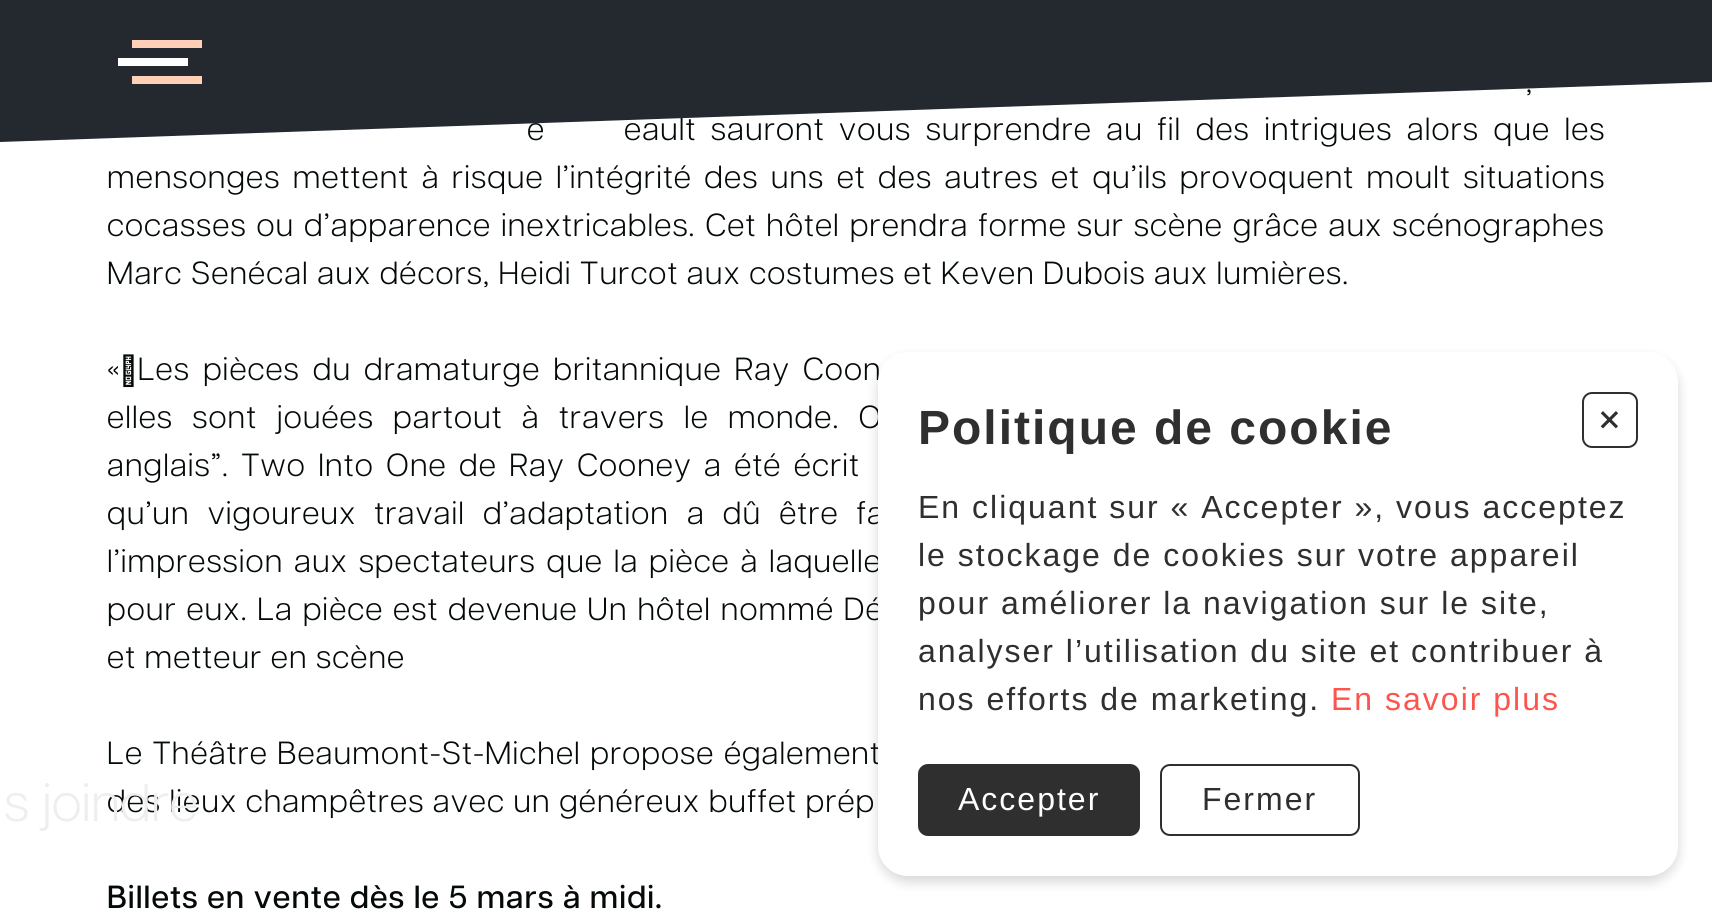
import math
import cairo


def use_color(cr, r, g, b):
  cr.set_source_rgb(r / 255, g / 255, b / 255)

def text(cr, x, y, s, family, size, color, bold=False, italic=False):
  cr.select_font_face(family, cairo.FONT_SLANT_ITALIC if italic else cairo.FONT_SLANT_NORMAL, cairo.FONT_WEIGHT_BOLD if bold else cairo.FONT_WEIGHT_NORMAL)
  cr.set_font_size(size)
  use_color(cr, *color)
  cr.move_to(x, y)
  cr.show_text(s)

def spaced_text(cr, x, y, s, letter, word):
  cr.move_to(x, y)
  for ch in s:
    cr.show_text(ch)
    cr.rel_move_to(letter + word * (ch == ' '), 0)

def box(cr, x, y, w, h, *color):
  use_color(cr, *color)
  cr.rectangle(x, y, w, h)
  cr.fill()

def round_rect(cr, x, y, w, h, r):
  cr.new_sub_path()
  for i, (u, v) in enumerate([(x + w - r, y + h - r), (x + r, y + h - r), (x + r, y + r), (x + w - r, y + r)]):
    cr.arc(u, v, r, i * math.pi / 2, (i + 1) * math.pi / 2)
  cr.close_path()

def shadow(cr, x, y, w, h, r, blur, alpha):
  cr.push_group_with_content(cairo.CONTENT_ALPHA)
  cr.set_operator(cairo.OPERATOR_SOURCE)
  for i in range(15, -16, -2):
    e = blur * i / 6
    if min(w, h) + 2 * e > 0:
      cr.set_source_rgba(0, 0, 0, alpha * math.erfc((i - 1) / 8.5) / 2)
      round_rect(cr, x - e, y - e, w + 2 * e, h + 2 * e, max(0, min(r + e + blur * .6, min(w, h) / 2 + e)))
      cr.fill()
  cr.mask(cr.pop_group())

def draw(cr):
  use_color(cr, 255, 255, 255)
  cr.paint()
  use_color(cr, 0, 0, 0)
  shadow(cr, 878, 358, 800, 524, 30, 6, 0.16)
  cr.select_font_face("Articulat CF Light")
  cr.set_font_size(32)
  use_color(cr, 4, 9, 10)
  spaced_text(cr, 1526, 92, ",", 1.08, 0)
  spaced_text(cr, 527, 140, "e", 1.08, 6)
  spaced_text(cr, 624, 140, "eault sauront vous surprendre au fil des intrigues alors que les", 1.08, 6)
  spaced_text(cr, 107, 188, "mensonges mettent à risque l’intégrité des uns et des autres et qu’ils provoquent moult situations", 1.08, 3.9)
  spaced_text(cr, 107, 236, "cocasses ou d’apparence inextricables. Cet hôtel prendra forme sur scène grâce aux scénographes", 1.08, 1.4)
  spaced_text(cr, 107, 284, "Marc Senécal aux décors, Heidi Turcot aux costumes et Keven Dubois aux lumières.", 1.08, 0)
  spaced_text(cr, 107, 380, "« Les pièces du dramaturge britannique Ray Coone", 1.08, 4.5)
  spaced_text(cr, 107, 428, "elles sont jouées partout à travers le monde. O", 1.08, 10.75)
  spaced_text(cr, 107, 476, "anglais”. Two Into One de Ray Cooney a été écrit", 1.08, 3.9)
  spaced_text(cr, 107, 524, "qu’un vigoureux travail d’adaptation a dû être fa", 1.08, 9.5)
  spaced_text(cr, 107, 572, "l’impression aux spectateurs que la pièce à laquelle", 1.08, 2.25)
  spaced_text(cr, 107, 620, "pour eux. La pièce est devenue Un hôtel nommé Dé", 1.08, 1.25)
  spaced_text(cr, 107, 668, "et metteur en scène", 1.08, 0)
  spaced_text(cr, 107, 764, "Le Théâtre Beaumont-St-Michel propose également", 1.08, 1)
  spaced_text(cr, 107, 812, "des lieux champêtres avec un généreux buffet prép", 1.08, 0)
  cr.select_font_face("Articulat CF Medium")
  spaced_text(cr, 107, 908, "Billets en vente dès le 5 mars à midi.", 1.08, 0)
  use_color(cr, 36, 41, 48)
  cr.new_path()
  cr.move_to(0, -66)
  cr.line_to(1712, -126)
  cr.line_to(1712, 82)
  cr.line_to(0, 142)
  cr.close_path()
  cr.fill()
  box(cr, 132, 40, 70, 8, 255, 208, 183)
  box(cr, 118, 58, 70, 8, 255, 255, 255)
  box(cr, 132, 76, 70, 8, 255, 208, 183)
  text(cr, 4, 821, "s joindre", "Articulat CF Light", 53, (238, 238, 238))
  use_color(cr, 255, 255, 255)
  round_rect(cr, 878, 352, 800, 524, 30)
  cr.fill()
  cr.select_font_face("Liberation Sans", cairo.FONT_SLANT_NORMAL, cairo.FONT_WEIGHT_BOLD)
  cr.set_font_size(48)
  use_color(cr, 47, 47, 47)
  spaced_text(cr, 918, 444, "Politique de cookie", 2, 0)
  round_rect(cr, 1583, 393, 54, 54, 9)
  cr.stroke()
  cr.save()
  cr.translate(1590, 421)
  cr.rotate(45 * math.pi / 180)
  text(cr, 0, 0, "+", "Liberation Sans", 44, (47, 47, 47))
  cr.restore()
  cr.select_font_face("Liberation Sans")
  cr.set_font_size(32)
  use_color(cr, 47, 47, 47)
  spaced_text(cr, 918, 518, "En cliquant sur « Accepter », vous acceptez", 2, 0)
  spaced_text(cr, 918, 566, "le stockage de cookies sur votre appareil", 2, 0)
  spaced_text(cr, 918, 614, "pour améliorer la navigation sur le site,", 2, 0)
  spaced_text(cr, 918, 662, "analyser l’utilisation du site et contribuer à", 2, 0)
  spaced_text(cr, 918, 710, "nos efforts de marketing.", 2, 0)
  use_color(cr, 253, 85, 77)
  spaced_text(cr, 1331, 710, "En savoir plus", 2, 0)
  use_color(cr, 47, 47, 47)
  round_rect(cr, 918, 764, 222, 72, 10)
  cr.fill()
  use_color(cr, 255, 255, 255)
  spaced_text(cr, 958, 810, "Accepter", 2, 0)
  round_rect(cr, 1161, 765, 198, 70, 9)
  use_color(cr, 47, 47, 47)
  cr.stroke()
  spaced_text(cr, 1202, 810, "Fermer", 2, 0)


surface = cairo.ImageSurface(cairo.FORMAT_RGB24, 1712, 910)
cr = cairo.Context(surface)
options = cairo.FontOptions()
options.set_hint_metrics(cairo.HINT_METRICS_OFF)
options.set_hint_style(cairo.HINT_STYLE_NONE)
cr.set_font_options(options)
cr.set_miter_limit(4)
draw(cr)
surface.write_to_png("out.png")
